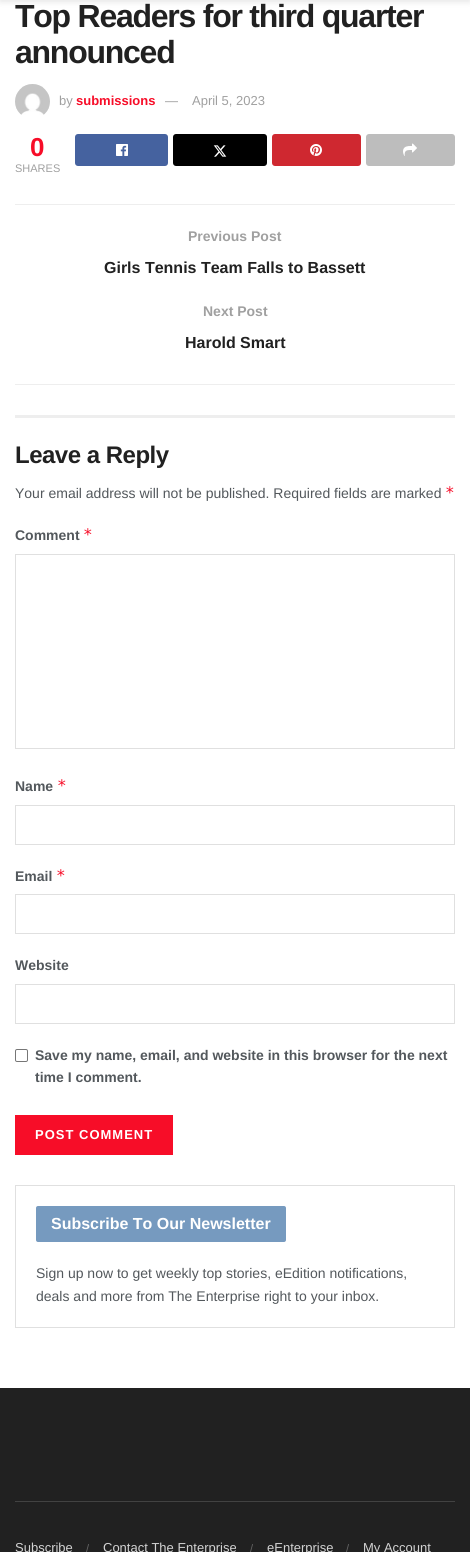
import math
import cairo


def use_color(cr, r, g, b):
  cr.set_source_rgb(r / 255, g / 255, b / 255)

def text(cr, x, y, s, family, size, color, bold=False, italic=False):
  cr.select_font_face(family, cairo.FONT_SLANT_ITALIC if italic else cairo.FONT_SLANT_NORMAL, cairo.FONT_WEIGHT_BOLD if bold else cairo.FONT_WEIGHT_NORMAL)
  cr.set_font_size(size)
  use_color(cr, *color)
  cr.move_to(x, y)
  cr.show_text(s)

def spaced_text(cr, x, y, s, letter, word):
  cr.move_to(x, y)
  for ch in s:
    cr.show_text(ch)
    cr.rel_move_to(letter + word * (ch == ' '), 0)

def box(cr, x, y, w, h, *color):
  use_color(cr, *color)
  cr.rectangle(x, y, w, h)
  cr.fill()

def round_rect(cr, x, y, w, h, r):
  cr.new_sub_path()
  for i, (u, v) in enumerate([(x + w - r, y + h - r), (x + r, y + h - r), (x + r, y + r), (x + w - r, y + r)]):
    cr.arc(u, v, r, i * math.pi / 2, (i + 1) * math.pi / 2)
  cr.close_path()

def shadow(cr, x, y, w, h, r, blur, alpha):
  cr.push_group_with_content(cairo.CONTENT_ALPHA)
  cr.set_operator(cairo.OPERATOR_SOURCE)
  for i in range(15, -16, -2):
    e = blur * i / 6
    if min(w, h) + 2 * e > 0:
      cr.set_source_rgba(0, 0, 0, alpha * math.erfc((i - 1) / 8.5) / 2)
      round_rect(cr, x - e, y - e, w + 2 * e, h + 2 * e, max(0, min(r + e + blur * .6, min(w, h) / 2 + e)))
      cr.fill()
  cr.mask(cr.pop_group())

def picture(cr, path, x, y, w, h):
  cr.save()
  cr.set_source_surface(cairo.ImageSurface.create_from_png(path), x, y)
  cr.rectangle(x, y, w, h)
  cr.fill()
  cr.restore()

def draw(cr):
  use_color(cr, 255, 255, 255)
  cr.paint()
  use_color(cr, 0, 0, 0)
  shadow(cr, 0, -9, 470, 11, 0, 3, 0.1)
  picture(cr, "img_01.png", 15, 84, 35, 31)
  use_color(cr, 69, 98, 159)
  round_rect(cr, 75, 134, 93, 32, 3)
  cr.fill()
  picture(cr, "img_02.png", 116, 144, 12, 12)
  use_color(cr, 0, 0, 0)
  round_rect(cr, 173, 134, 94, 32, 3)
  cr.fill()
  picture(cr, "img_03.png", 213, 145, 14, 12)
  use_color(cr, 207, 40, 48)
  round_rect(cr, 272, 134, 89, 32, 3)
  cr.fill()
  picture(cr, "img_04.png", 310, 144, 12, 12)
  use_color(cr, 189, 189, 189)
  round_rect(cr, 366, 134, 89, 32, 3)
  cr.fill()
  picture(cr, "img_05.png", 403, 143, 14, 13)
  box(cr, 15, 204, 440, 1, 238, 238, 238)
  box(cr, 15, 384, 440, 1, 238, 238, 238)
  box(cr, 15, 415, 440, 3, 238, 238, 238)
  cr.rectangle(15.5, 554.5, 439, 194)
  use_color(cr, 224, 224, 224)
  cr.set_line_width(1)
  cr.stroke()
  cr.rectangle(15.5, 805.5, 439, 39)
  cr.stroke()
  cr.rectangle(15.5, 894.5, 439, 39)
  cr.stroke()
  cr.rectangle(15.5, 984.5, 439, 39)
  cr.stroke()
  round_rect(cr, 15.5, 1049.5, 12, 12, 1.5)
  use_color(cr, 118, 118, 118)
  cr.stroke()
  box(cr, 15, 1115, 158, 40, 247, 13, 40)
  cr.rectangle(15.5, 1185.5, 439, 142)
  use_color(cr, 224, 224, 224)
  cr.stroke()
  use_color(cr, 118, 154, 191)
  round_rect(cr, 36, 1206, 250, 36, 2)
  cr.fill()
  box(cr, 0, 1388, 470, 164, 33, 33, 33)
  box(cr, 15, 1501, 440, 1, 66, 66, 66)
  cr.select_font_face("Liberation Sans", cairo.FONT_SLANT_NORMAL, cairo.FONT_WEIGHT_BOLD)
  cr.set_font_size(32)
  use_color(cr, 33, 33, 33)
  spaced_text(cr, 15, 27, "Top Readers for third quarter", -1.25, 0)
  spaced_text(cr, 15, 63, "announced", -1.25, 0)
  text(cr, 59, 105, "by", "Liberation Sans", 13, (160, 160, 160))
  text(cr, 76, 105, "submissions", "Liberation Sans", 13, (247, 13, 40), bold=True)
  text(cr, 165, 105, "—", "Liberation Sans", 13, (160, 160, 160))
  text(cr, 192, 105, "April 5, 2023", "Liberation Sans", 13, (160, 160, 160))
  text(cr, 30, 156, "0", "Liberation Sans", 26, (247, 13, 40), bold=True)
  text(cr, 15, 172, "SHARES", "Liberation Sans", 11, (160, 160, 160))
  text(cr, 188, 241, "Previous Post", "Liberation Sans", 14, (160, 160, 160), bold=True)
  text(cr, 104, 273, "Girls Tennis Team Falls to Bassett", "Liberation Sans", 16, (33, 33, 33), bold=True)
  text(cr, 203, 316, "Next Post", "Liberation Sans", 14, (160, 160, 160), bold=True)
  text(cr, 185, 348, "Harold Smart", "Liberation Sans", 16, (33, 33, 33), bold=True)
  cr.set_font_size(24)
  spaced_text(cr, 15, 463, "Leave a Reply", -0.5, 0)
  text(cr, 15, 498, "Your email address will not be published. Required fields are marked", "Liberation Sans", 14, (83, 88, 92))
  text(cr, 445, 498, "*", "DejaVu Sans Mono", 16, (247, 13, 40))
  text(cr, 15, 540, "Comment", "Liberation Sans", 14, (83, 88, 92), bold=True)
  text(cr, 83, 540, "*", "DejaVu Sans Mono", 16, (247, 13, 40))
  text(cr, 15, 791, "Name", "Liberation Sans", 14, (83, 88, 92), bold=True)
  text(cr, 57, 791, "*", "DejaVu Sans Mono", 16, (247, 13, 40))
  text(cr, 15, 881, "Email", "Liberation Sans", 14, (83, 88, 92), bold=True)
  text(cr, 56, 881, "*", "DejaVu Sans Mono", 16, (247, 13, 40))
  text(cr, 15, 970, "Website", "Liberation Sans", 14, (83, 88, 92), bold=True)
  text(cr, 35, 1060, "Save my name, email, and website in this browser for the next", "Liberation Sans", 14, (83, 88, 92), bold=True)
  text(cr, 35, 1082, "time I comment.", "Liberation Sans", 14, (83, 88, 92), bold=True)
  cr.set_font_size(13)
  use_color(cr, 255, 255, 255)
  spaced_text(cr, 35, 1139, "POST COMMENT", 1, 0)
  text(cr, 51, 1229, "Subscribe To Our Newsletter", "Liberation Sans", 16, (255, 255, 255), bold=True)
  text(cr, 36, 1278, "Sign up now to get weekly top stories, eEdition notifications,", "Liberation Sans", 14, (83, 88, 92))
  text(cr, 36, 1301, "deals and more from The Enterprise right to your inbox.", "Liberation Sans", 14, (83, 88, 92))
  text(cr, 15, 1552, "Subscribe", "Liberation Sans", 13, (211, 211, 211))
  text(cr, 86, 1552, "/", "Liberation Sans", 11, (100, 100, 100))
  text(cr, 103, 1552, "Contact The Enterprise", "Liberation Sans", 13, (211, 211, 211))
  text(cr, 250, 1552, "/", "Liberation Sans", 11, (100, 100, 100))
  text(cr, 267, 1552, "eEnterprise", "Liberation Sans", 13, (211, 211, 211))
  text(cr, 346, 1552, "/", "Liberation Sans", 11, (100, 100, 100))
  text(cr, 363, 1552, "My Account", "Liberation Sans", 13, (211, 211, 211))


surface = cairo.ImageSurface(cairo.FORMAT_RGB24, 470, 1552)
cr = cairo.Context(surface)
options = cairo.FontOptions()
options.set_hint_metrics(cairo.HINT_METRICS_OFF)
options.set_hint_style(cairo.HINT_STYLE_NONE)
cr.set_font_options(options)
cr.set_miter_limit(4)
draw(cr)
surface.write_to_png("out.png")
